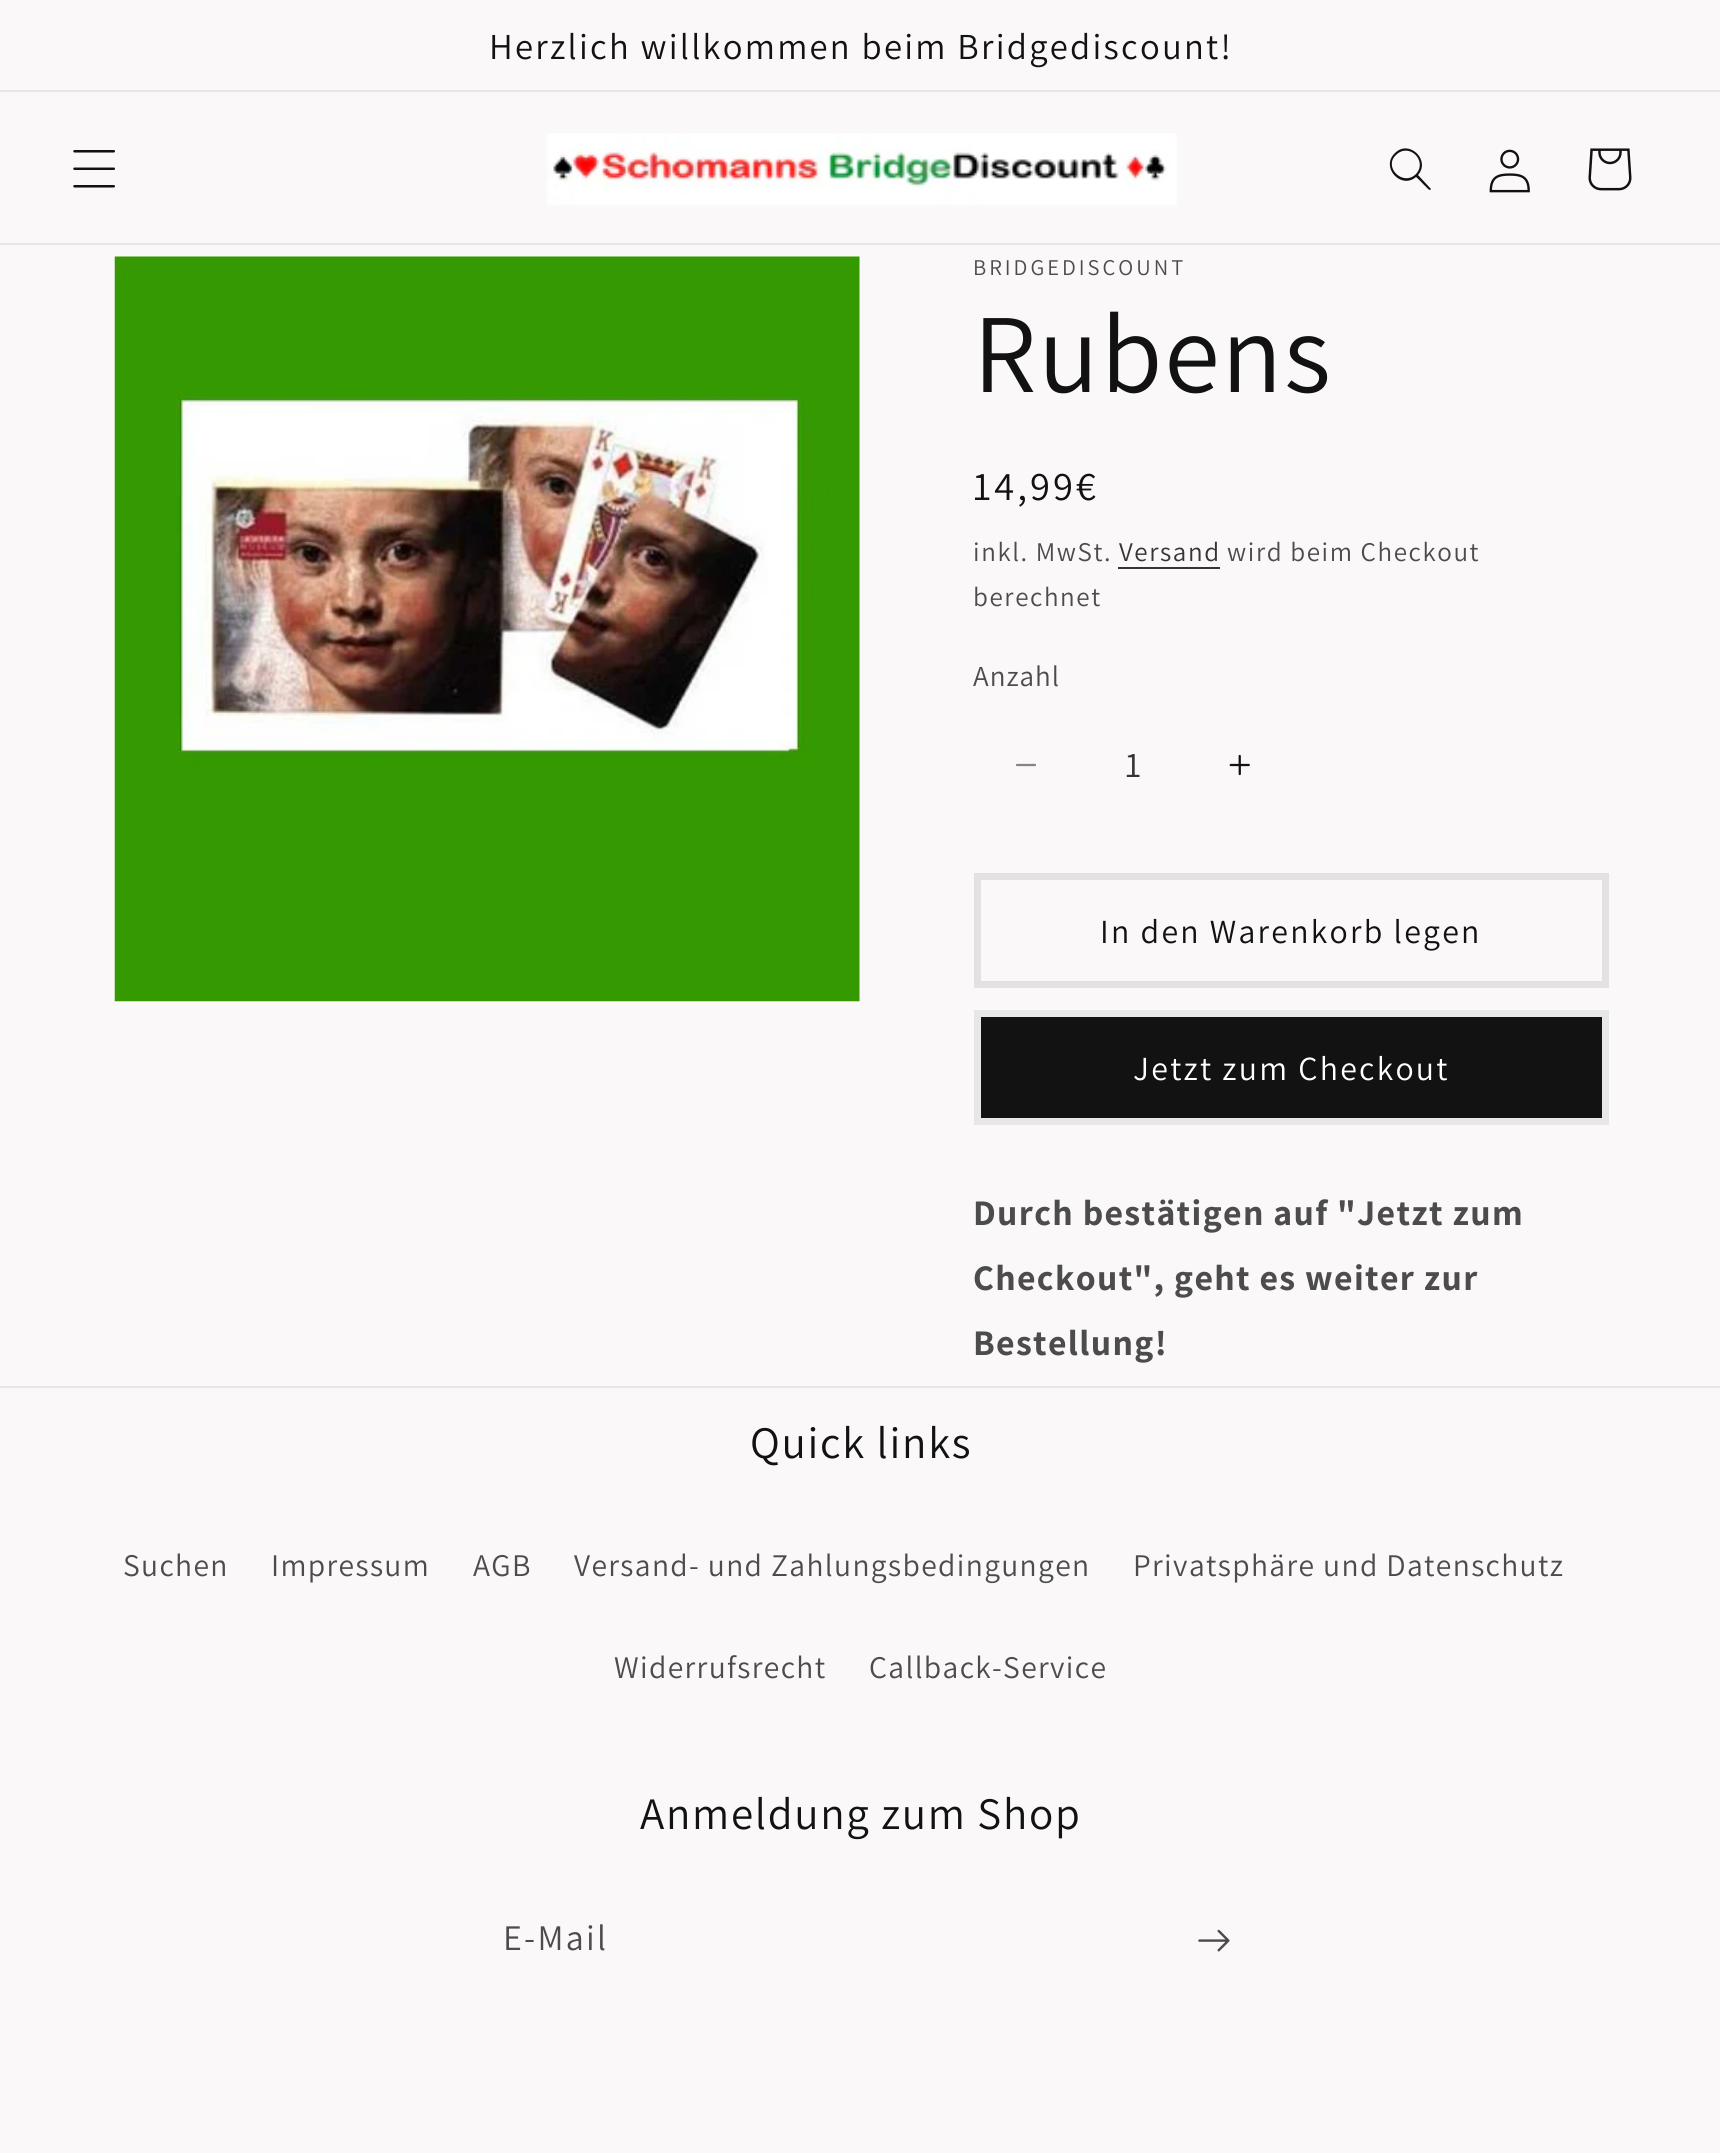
import math
import cairo


def use_color(cr, r, g, b):
  cr.set_source_rgb(r / 255, g / 255, b / 255)

def text(cr, x, y, s, family, size, color, bold=False, italic=False):
  cr.select_font_face(family, cairo.FONT_SLANT_ITALIC if italic else cairo.FONT_SLANT_NORMAL, cairo.FONT_WEIGHT_BOLD if bold else cairo.FONT_WEIGHT_NORMAL)
  cr.set_font_size(size)
  use_color(cr, *color)
  cr.move_to(x, y)
  cr.show_text(s)

def spaced_text(cr, x, y, s, letter, word):
  cr.move_to(x, y)
  for ch in s:
    cr.show_text(ch)
    cr.rel_move_to(letter + word * (ch == ' '), 0)

def box(cr, x, y, w, h, *color):
  use_color(cr, *color)
  cr.rectangle(x, y, w, h)
  cr.fill()

def picture(cr, path, x, y, w, h):
  cr.save()
  cr.set_source_surface(cairo.ImageSurface.create_from_png(path), x, y)
  cr.rectangle(x, y, w, h)
  cr.fill()
  cr.restore()

def draw(cr):
  use_color(cr, 250, 248, 248)
  cr.paint()
  box(cr, 0, 90, 1720, 2, 231, 230, 230)
  box(cr, 0, 243, 1720, 2, 231, 230, 230)
  picture(cr, "img_01.png", 73, 150, 42, 38)
  picture(cr, "img_02.png", 547, 133, 630, 72)
  use_color(cr, 18, 18, 18)
  cr.set_fill_rule(cairo.FILL_RULE_EVEN_ODD)
  cr.new_path()
  cr.move_to(1416, 174)
  cr.curve_to(1403, 187, 1383, 167, 1396, 155)
  cr.curve_to(1409, 142, 1428, 161, 1416, 174)
  cr.close_path()
  cr.move_to(1416, 177)
  cr.curve_to(1401, 190, 1380, 167, 1395, 153)
  cr.curve_to(1409, 139, 1431, 160, 1418, 175)
  cr.line_to(1431, 189)
  cr.line_to(1430, 190)
  cr.curve_to(1429, 191, 1418, 178, 1416, 177)
  cr.close_path()
  cr.fill()
  picture(cr, "img_03.png", 1489, 149, 41, 44)
  picture(cr, "img_04.png", 1588, 148, 44, 43)
  picture(cr, "img_05.png", 114, 256, 746, 746)
  box(cr, 1118, 567, 102, 2, 53, 53, 53)
  picture(cr, "img_06.png", 1015, 763, 21, 4)
  picture(cr, "img_07.png", 1229, 754, 21, 22)
  cr.rectangle(977.5, 876.5, 628, 108)
  use_color(cr, 227, 225, 225)
  cr.set_line_width(7)
  cr.stroke()
  box(cr, 981, 1017, 621, 101, 18, 18, 18)
  cr.rectangle(977.5, 1013.5, 628, 108)
  use_color(cr, 231, 231, 231)
  cr.stroke()
  box(cr, 0, 1386, 1720, 2, 231, 230, 230)
  picture(cr, "img_08.png", 1198, 1929, 32, 23)
  cr.select_font_face("Assistant")
  cr.set_font_size(36.6)
  use_color(cr, 18, 18, 18)
  spaced_text(cr, 489, 59, "Herzlich willkommen beim Bridgediscount!", 2.25, 0)
  cr.set_font_size(22.5)
  use_color(cr, 76, 76, 76)
  spaced_text(cr, 973, 275, "BRIDGEDISCOUNT", 3, 0)
  cr.set_font_size(112.5)
  use_color(cr, 18, 18, 18)
  spaced_text(cr, 973, 392, "Rubens", 1.7, 0)
  cr.set_font_size(40.5)
  spaced_text(cr, 973, 500, "14,99€", 3, 0)
  cr.set_font_size(27)
  use_color(cr, 76, 76, 76)
  spaced_text(cr, 973, 561, "inkl. MwSt.", 1.6, 0)
  use_color(cr, 53, 53, 53)
  spaced_text(cr, 1119, 561, "Versand", 1.6, 0)
  use_color(cr, 76, 76, 76)
  spaced_text(cr, 1227, 561, "wird beim Checkout", 1.6, 0)
  spaced_text(cr, 973, 606, "berechnet", 1.6, 0)
  cr.set_font_size(29)
  spaced_text(cr, 973, 686, "Anzahl", 1, 0)
  text(cr, 1125, 777, "1", "Assistant", 36, (53, 53, 53))
  cr.set_font_size(33.75)
  use_color(cr, 18, 18, 18)
  spaced_text(cr, 1100, 943, "In den Warenkorb legen", 2.25, 0)
  use_color(cr, 255, 255, 255)
  spaced_text(cr, 1133, 1080, "Jetzt zum Checkout", 2.25, 0)
  cr.select_font_face("Assistant", cairo.FONT_SLANT_NORMAL, cairo.FONT_WEIGHT_BOLD)
  cr.set_font_size(36)
  use_color(cr, 76, 76, 76)
  spaced_text(cr, 973, 1225, "Durch bestätigen auf \"Jetzt zum", 1.35, 0)
  spaced_text(cr, 973, 1290, "Checkout\", geht es weiter zur", 1.35, 0)
  spaced_text(cr, 973, 1355, "Bestellung!", 1.35, 0)
  cr.select_font_face("Assistant")
  cr.set_font_size(45)
  use_color(cr, 18, 18, 18)
  spaced_text(cr, 750, 1458, "Quick links", 1.7, 0)
  cr.set_font_size(31.5)
  use_color(cr, 76, 76, 76)
  spaced_text(cr, 123, 1576, "Suchen", 1.35, 0)
  spaced_text(cr, 271, 1576, "Impressum", 1.35, 0)
  spaced_text(cr, 473, 1576, "AGB", 1.35, 0)
  spaced_text(cr, 574, 1576, "Versand- und Zahlungsbedingungen", 1.35, 0)
  spaced_text(cr, 1133, 1576, "Privatsphäre und Datenschutz", 1.35, 0)
  spaced_text(cr, 614, 1678, "Widerrufsrecht", 1.35, 0)
  spaced_text(cr, 869, 1678, "Callback-Service", 1.35, 0)
  cr.set_font_size(45)
  use_color(cr, 18, 18, 18)
  spaced_text(cr, 640, 1829, "Anmeldung zum Shop", 1.7, 0)
  cr.set_font_size(36)
  use_color(cr, 76, 76, 76)
  spaced_text(cr, 503, 1950, "E-Mail", 2.25, 0)


surface = cairo.ImageSurface(cairo.FORMAT_RGB24, 1720, 2153)
cr = cairo.Context(surface)
options = cairo.FontOptions()
options.set_hint_metrics(cairo.HINT_METRICS_OFF)
options.set_hint_style(cairo.HINT_STYLE_NONE)
cr.set_font_options(options)
cr.set_miter_limit(4)
draw(cr)
surface.write_to_png("out.png")
